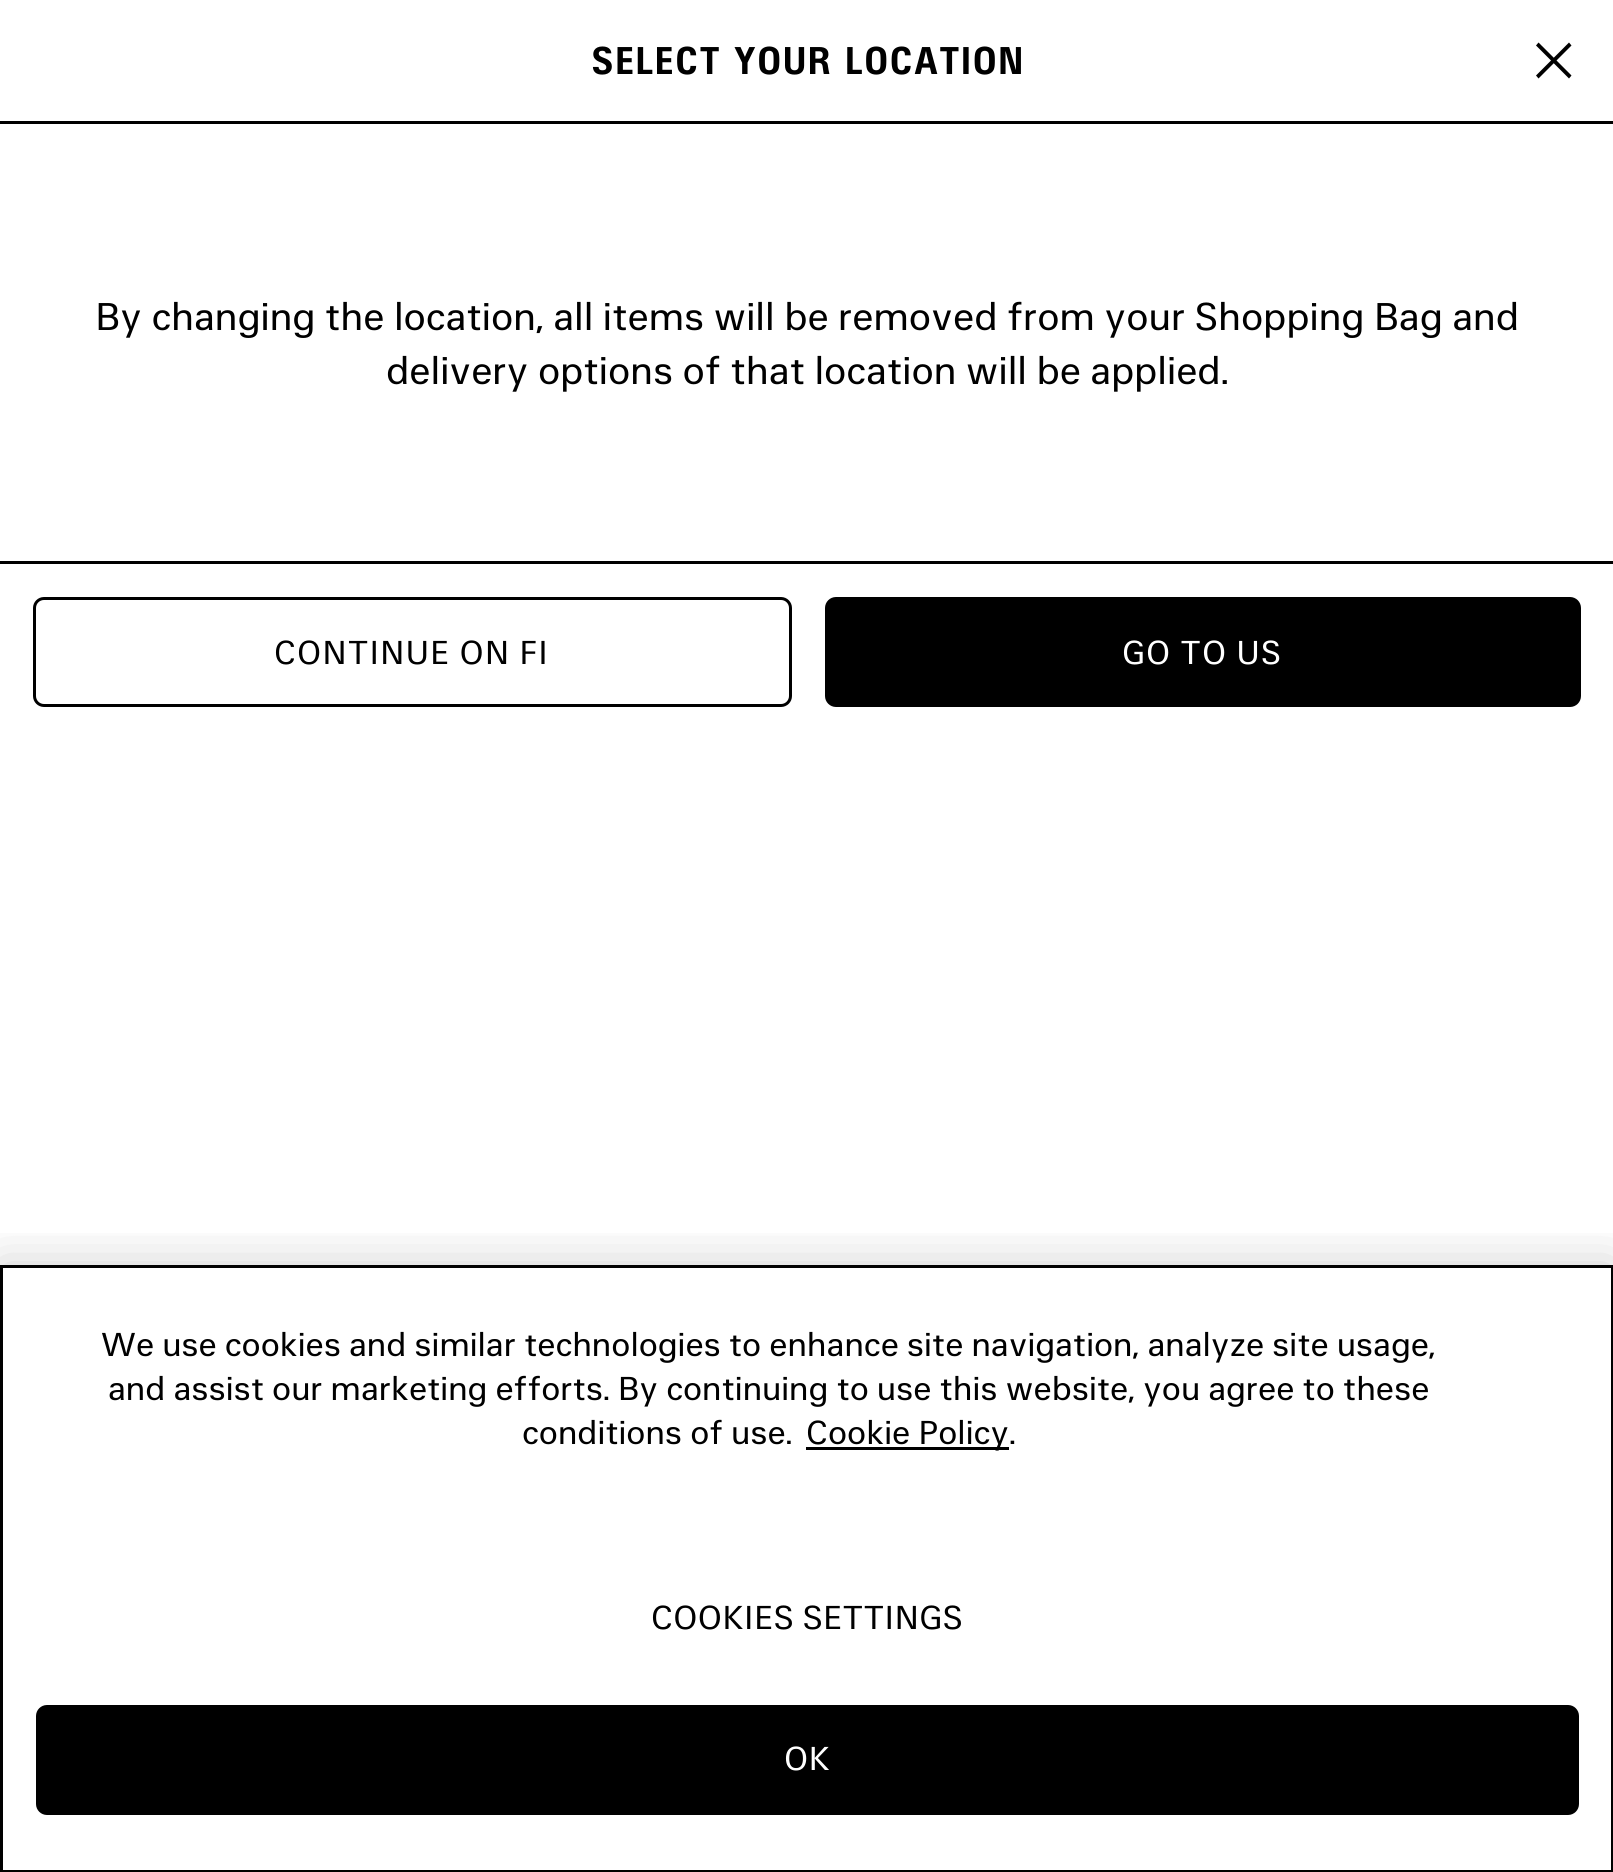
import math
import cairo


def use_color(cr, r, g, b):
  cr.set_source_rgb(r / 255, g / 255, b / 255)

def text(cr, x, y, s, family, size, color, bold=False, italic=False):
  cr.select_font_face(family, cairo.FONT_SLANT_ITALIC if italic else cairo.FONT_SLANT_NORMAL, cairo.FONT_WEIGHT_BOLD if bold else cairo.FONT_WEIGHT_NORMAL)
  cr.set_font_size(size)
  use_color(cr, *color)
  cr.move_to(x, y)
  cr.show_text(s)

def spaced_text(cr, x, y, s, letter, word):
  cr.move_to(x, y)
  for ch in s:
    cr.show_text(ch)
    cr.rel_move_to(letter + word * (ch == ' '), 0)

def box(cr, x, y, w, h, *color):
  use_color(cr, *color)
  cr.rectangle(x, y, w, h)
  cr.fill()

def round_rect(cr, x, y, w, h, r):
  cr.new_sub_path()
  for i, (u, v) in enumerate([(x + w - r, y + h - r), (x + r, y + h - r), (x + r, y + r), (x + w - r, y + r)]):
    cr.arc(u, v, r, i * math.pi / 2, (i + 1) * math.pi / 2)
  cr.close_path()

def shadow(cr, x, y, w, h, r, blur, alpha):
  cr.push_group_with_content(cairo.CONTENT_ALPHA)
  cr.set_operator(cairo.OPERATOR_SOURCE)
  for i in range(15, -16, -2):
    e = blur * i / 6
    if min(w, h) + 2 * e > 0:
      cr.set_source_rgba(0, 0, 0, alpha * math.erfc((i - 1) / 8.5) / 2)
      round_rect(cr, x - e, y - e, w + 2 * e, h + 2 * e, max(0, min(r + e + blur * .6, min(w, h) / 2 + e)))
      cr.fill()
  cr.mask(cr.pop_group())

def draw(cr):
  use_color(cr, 255, 255, 255)
  cr.paint()
  box(cr, 0, 121, 1613, 3, 0, 0, 0)
  cr.set_fill_rule(cairo.FILL_RULE_EVEN_ODD)
  cr.new_path()
  cr.move_to(1569, 42.5)
  cr.line_to(1571.5, 45.5)
  cr.line_to(1538.5, 78.5)
  cr.line_to(1536, 75.5)
  cr.close_path()
  cr.fill()
  cr.new_path()
  cr.move_to(1538.5, 42.5)
  cr.line_to(1571.5, 75.5)
  cr.line_to(1569, 78.5)
  cr.line_to(1536, 45.5)
  cr.close_path()
  cr.fill()
  box(cr, 0, 561, 1613, 3, 0, 0, 0)
  round_rect(cr, 34.5, 598.5, 756, 107, 9.5)
  cr.set_line_width(3)
  cr.stroke()
  round_rect(cr, 826.5, 598.5, 753, 107, 9.5)
  cr.fill_preserve()
  cr.stroke()
  cr.save()
  cr.set_fill_rule(cairo.FILL_RULE_WINDING)
  cr.rectangle(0, 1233, 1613, 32)
  cr.clip()
  use_color(cr, 0, 0, 0)
  shadow(cr, 0, 1265, 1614, 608, 0, 25, 0.2)
  cr.restore()
  cr.rectangle(1.5, 1266.5, 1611, 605)
  cr.stroke()
  box(cr, 806, 1447, 203, 3, 0, 0, 0)
  round_rect(cr, 37.5, 1706.5, 1540, 107, 9.5)
  cr.fill_preserve()
  cr.stroke()
  cr.select_font_face("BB", cairo.FONT_SLANT_NORMAL, cairo.FONT_WEIGHT_BOLD)
  cr.set_font_size(38.5)
  spaced_text(cr, 591, 74, "SELECT YOUR LOCATION", 1.2, 0)
  text(cr, 95, 330, "By changing the location, all items will be removed from your Shopping Bag and", "BB", 38.5, (0, 0, 0))
  text(cr, 386, 384, "delivery options of that location will be applied.", "BB", 38.5, (0, 0, 0))
  cr.set_font_size(33)
  spaced_text(cr, 274, 664, "CONTINUE ON FI", 1, 0)
  use_color(cr, 255, 255, 255)
  spaced_text(cr, 1122, 664, "GO TO US", 1, 0)
  text(cr, 101, 1356, "We use cookies and similar technologies to enhance site navigation, analyze site usage,", "BB", 33, (0, 0, 0))
  text(cr, 108, 1400, "and assist our marketing efforts. By continuing to use this website, you agree to these", "BB", 33, (0, 0, 0))
  text(cr, 522, 1444, "conditions of use.", "BB", 33, (0, 0, 0))
  text(cr, 806, 1444, "Cookie Policy.", "BB", 33, (0, 0, 0))
  spaced_text(cr, 651, 1629, "COOKIES SETTINGS", 0.3, 0)
  use_color(cr, 255, 255, 255)
  spaced_text(cr, 784, 1770, "OK", 0.3, 0)


surface = cairo.ImageSurface(cairo.FORMAT_RGB24, 1613, 1872)
cr = cairo.Context(surface)
options = cairo.FontOptions()
options.set_hint_metrics(cairo.HINT_METRICS_OFF)
options.set_hint_style(cairo.HINT_STYLE_NONE)
cr.set_font_options(options)
cr.set_miter_limit(4)
draw(cr)
surface.write_to_png("out.png")
